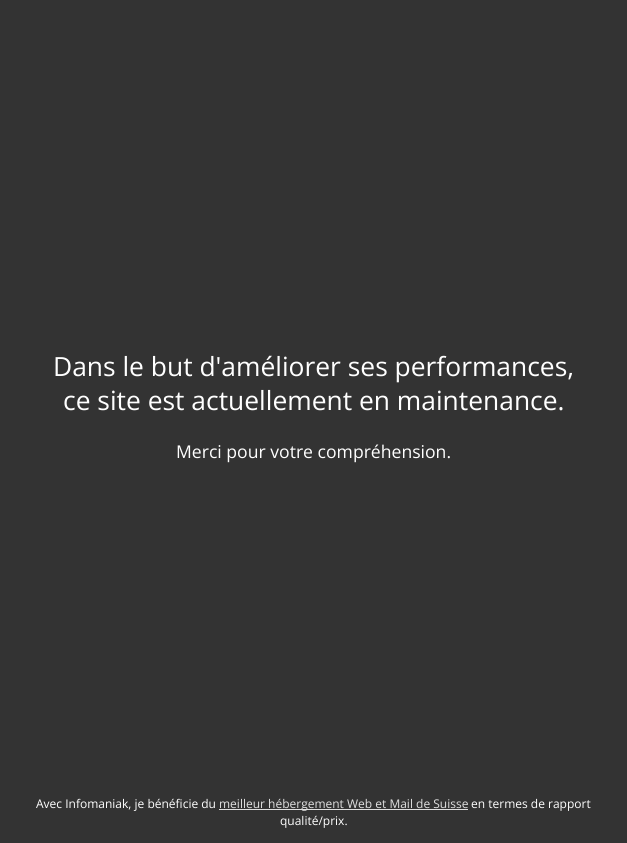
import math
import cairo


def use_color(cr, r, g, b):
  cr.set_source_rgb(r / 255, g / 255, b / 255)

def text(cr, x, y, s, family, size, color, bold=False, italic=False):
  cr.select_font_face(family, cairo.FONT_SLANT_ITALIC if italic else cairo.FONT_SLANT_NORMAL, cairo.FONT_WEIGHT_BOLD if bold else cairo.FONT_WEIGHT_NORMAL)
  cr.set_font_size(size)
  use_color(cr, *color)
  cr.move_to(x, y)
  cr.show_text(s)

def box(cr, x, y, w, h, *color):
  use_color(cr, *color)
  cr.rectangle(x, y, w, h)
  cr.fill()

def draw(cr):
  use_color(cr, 51, 51, 51)
  cr.paint()
  box(cr, 219, 809, 249, 1, 224, 224, 224)
  text(cr, 53, 376, "Dans le but d'améliorer ses performances,", "Open Sans", 26.4, (255, 255, 255))
  text(cr, 63, 410, "ce site est actuellement en maintenance.", "Open Sans", 26.4, (255, 255, 255))
  text(cr, 176, 458, "Merci pour votre compréhension.", "Open Sans", 17.6, (255, 255, 255))
  text(cr, 36, 808, "Avec Infomaniak, je bénéficie du", "Open Sans", 12, (255, 255, 255))
  text(cr, 219, 808, "meilleur hébergement Web et Mail de Suisse", "Open Sans", 12, (224, 224, 224))
  text(cr, 471, 808, "en termes de rapport", "Open Sans", 12, (255, 255, 255))
  text(cr, 280, 825, "qualité/prix.", "Open Sans", 12, (255, 255, 255))


surface = cairo.ImageSurface(cairo.FORMAT_RGB24, 627, 843)
cr = cairo.Context(surface)
options = cairo.FontOptions()
options.set_hint_metrics(cairo.HINT_METRICS_OFF)
options.set_hint_style(cairo.HINT_STYLE_NONE)
cr.set_font_options(options)
cr.set_miter_limit(4)
draw(cr)
surface.write_to_png("out.png")
